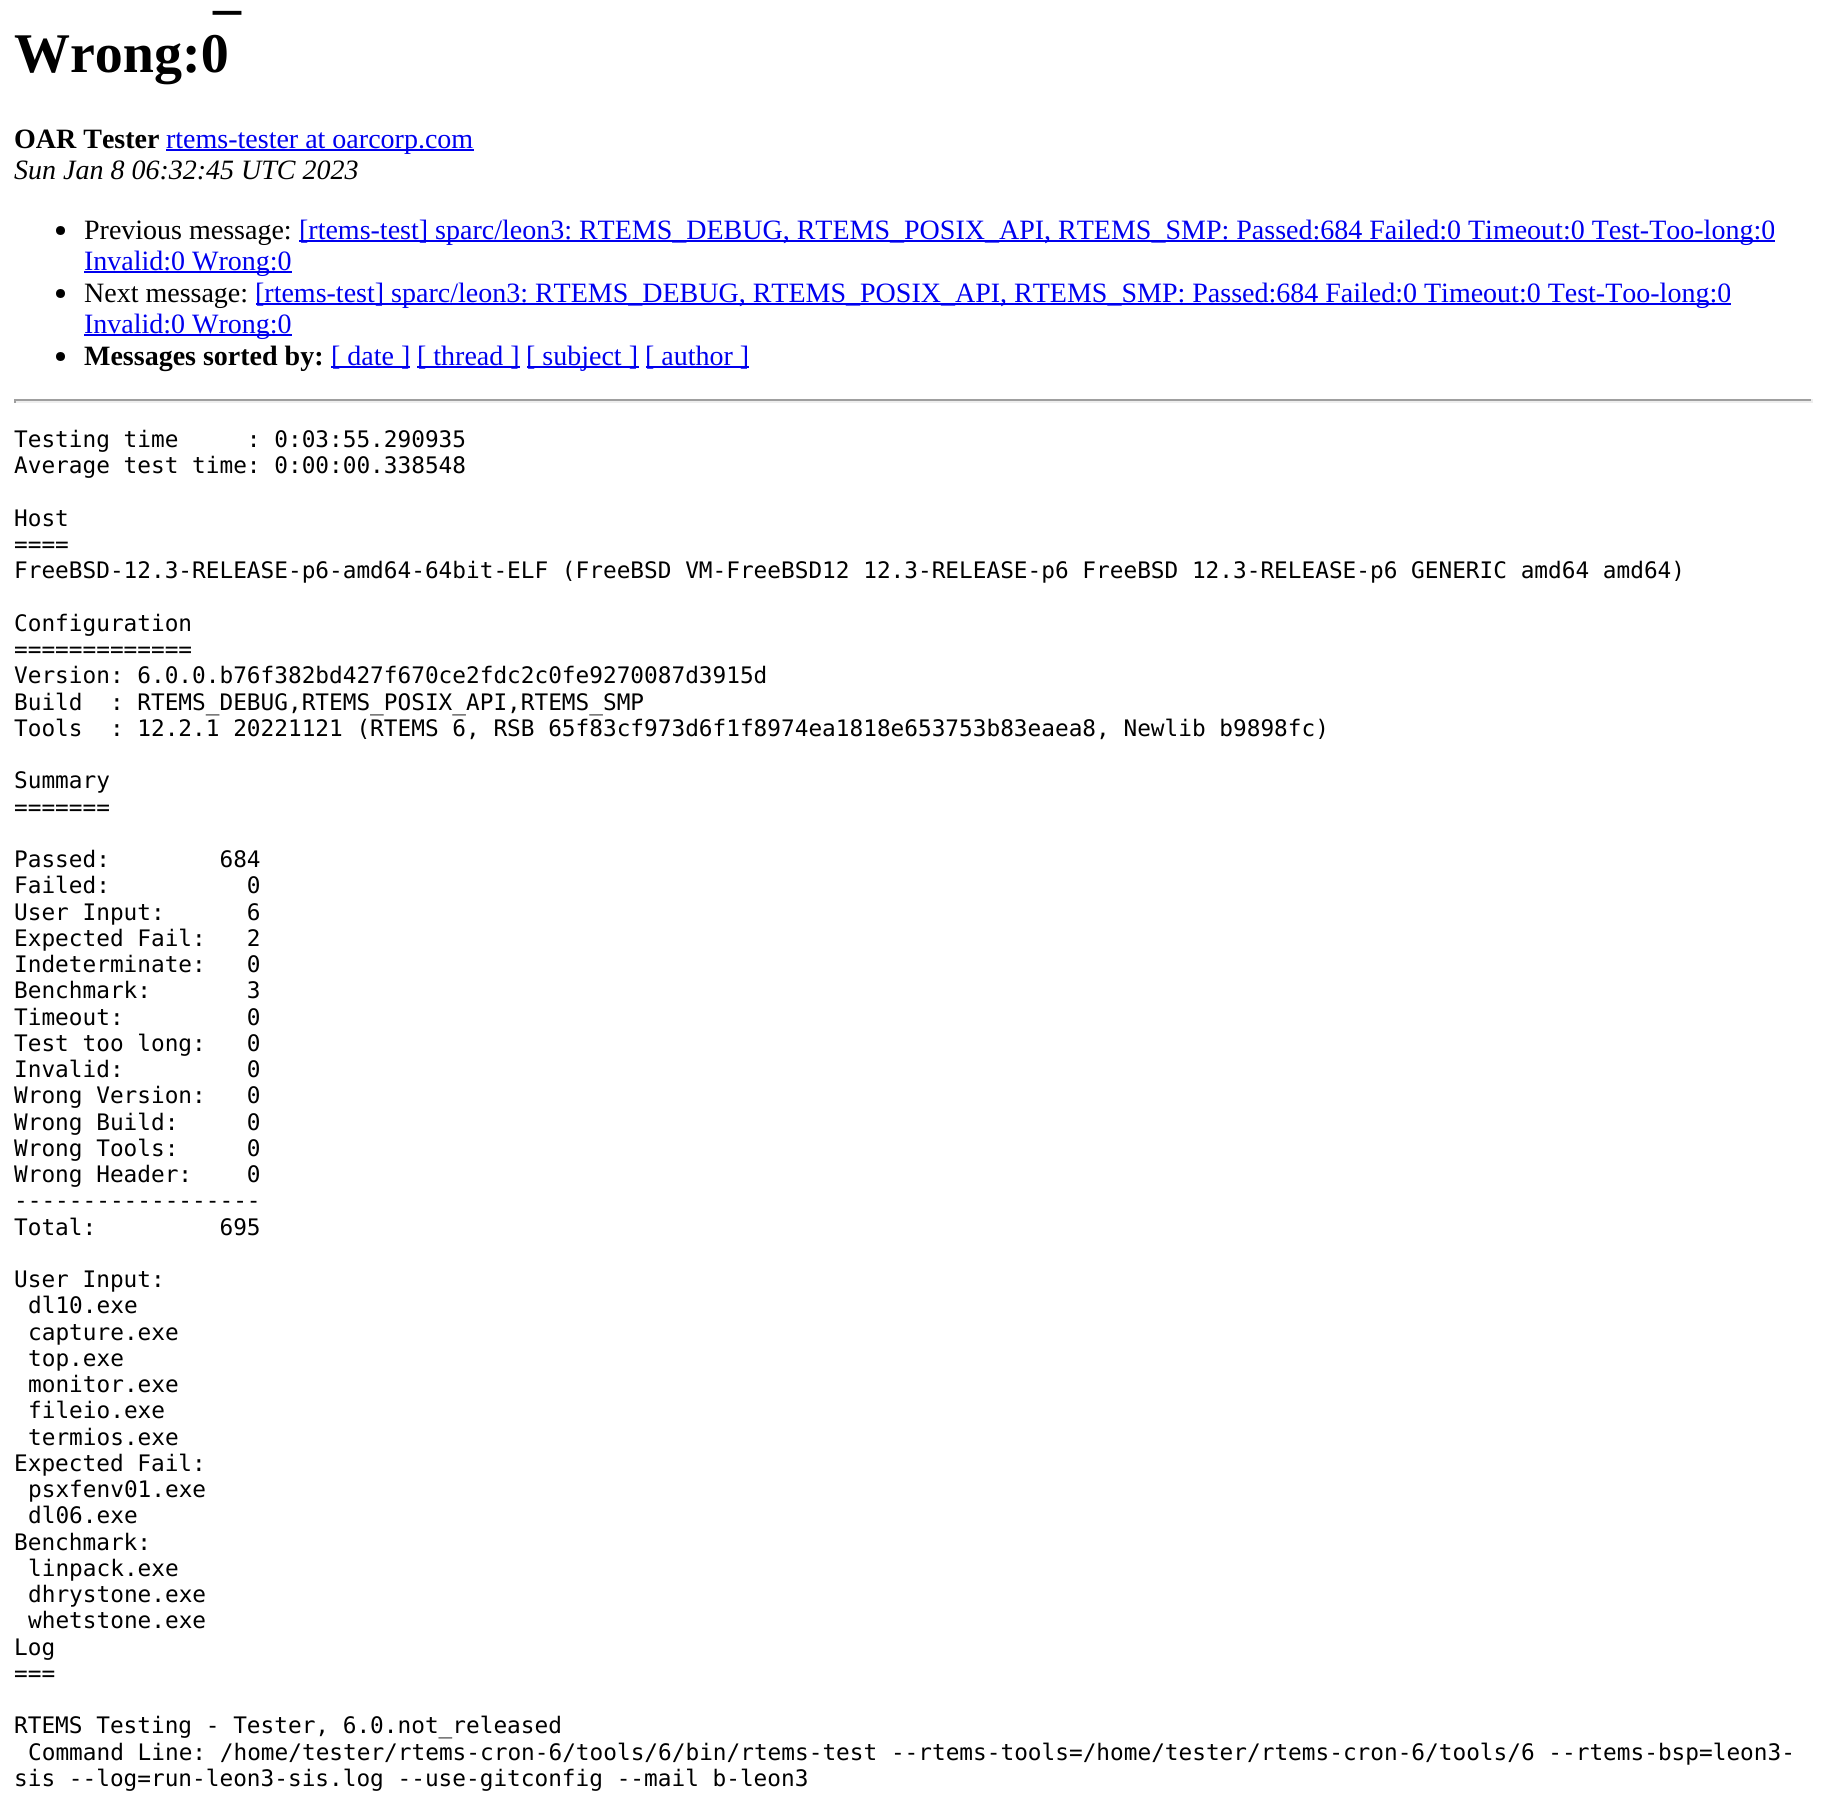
import math
import cairo


def use_color(cr, r, g, b):
  cr.set_source_rgb(r / 255, g / 255, b / 255)

def text(cr, x, y, s, family, size, color, bold=False, italic=False):
  cr.select_font_face(family, cairo.FONT_SLANT_ITALIC if italic else cairo.FONT_SLANT_NORMAL, cairo.FONT_WEIGHT_BOLD if bold else cairo.FONT_WEIGHT_NORMAL)
  cr.set_font_size(size)
  use_color(cr, *color)
  cr.move_to(x, y)
  cr.show_text(s)

def box(cr, x, y, w, h, *color):
  use_color(cr, *color)
  cr.rectangle(x, y, w, h)
  cr.fill()

def draw(cr):
  use_color(cr, 255, 255, 255)
  cr.paint()
  box(cr, 166, 149, 308, 2, 0, 0, 238)
  use_color(cr, 0, 0, 0)
  cr.arc(60.5, 230.5, 4.5, 0, 2 * math.pi)
  cr.fill()
  box(cr, 299, 240, 1476, 2, 0, 0, 238)
  box(cr, 84, 271, 208, 2, 0, 0, 238)
  use_color(cr, 0, 0, 0)
  cr.arc(60.5, 293.5, 4.5, 0, 2 * math.pi)
  cr.fill()
  box(cr, 256, 303, 1475, 2, 0, 0, 238)
  box(cr, 84, 334, 208, 2, 0, 0, 238)
  use_color(cr, 0, 0, 0)
  cr.arc(60.5, 356.5, 4.5, 0, 2 * math.pi)
  cr.fill()
  box(cr, 331, 366, 79, 2, 0, 0, 238)
  box(cr, 417, 366, 103, 2, 0, 0, 238)
  box(cr, 527, 366, 112, 2, 0, 0, 238)
  box(cr, 646, 366, 103, 2, 0, 0, 238)
  box(cr, 14, 399, 1799, 2, 159, 159, 159)
  box(cr, 1811, 399, 2, 4, 238, 238, 238)
  box(cr, 14, 401, 1799, 2, 238, 238, 238)
  box(cr, 14, 399, 2, 4, 159, 159, 159)
  text(cr, 213, 7, "_", "Liberation Serif", 56, (0, 0, 0), bold=True)
  text(cr, 14, 72, "Wrong:0", "Liberation Serif", 56, (0, 0, 0), bold=True)
  text(cr, 14, 148, "OAR Tester", "Liberation Serif", 28, (0, 0, 0), bold=True)
  text(cr, 166, 148, "rtems-tester at oarcorp.com", "Liberation Serif", 28, (0, 0, 238))
  text(cr, 14, 179, "Sun Jan 8 06:32:45 UTC 2023", "Liberation Serif", 28, (0, 0, 0), italic=True)
  text(cr, 84, 239, "Previous message:", "Liberation Serif", 28, (0, 0, 0))
  text(cr, 299, 239, "[rtems-test] sparc/leon3: RTEMS_DEBUG, RTEMS_POSIX_API, RTEMS_SMP: Passed:684 Failed:0 Timeout:0 Test-Too-long:0", "Liberation Serif", 28, (0, 0, 238))
  text(cr, 84, 270, "Invalid:0 Wrong:0", "Liberation Serif", 28, (0, 0, 238))
  text(cr, 84, 302, "Next message:", "Liberation Serif", 28, (0, 0, 0))
  text(cr, 255, 302, "[rtems-test] sparc/leon3: RTEMS_DEBUG, RTEMS_POSIX_API, RTEMS_SMP: Passed:684 Failed:0 Timeout:0 Test-Too-long:0", "Liberation Serif", 28, (0, 0, 238))
  text(cr, 84, 333, "Invalid:0 Wrong:0", "Liberation Serif", 28, (0, 0, 238))
  text(cr, 84, 365, "Messages sorted by:", "Liberation Serif", 28, (0, 0, 0), bold=True)
  text(cr, 331, 365, "[ date ]", "Liberation Serif", 28, (0, 0, 238))
  text(cr, 417, 365, "[ thread ]", "Liberation Serif", 28, (0, 0, 238))
  text(cr, 526, 365, "[ subject ]", "Liberation Serif", 28, (0, 0, 238))
  text(cr, 645, 365, "[ author ]", "Liberation Serif", 28, (0, 0, 238))
  text(cr, 14, 447, "Testing time     : 0:03:55.290935", "DejaVu Sans Mono", 22.75, (0, 0, 0))
  text(cr, 14, 473, "Average test time: 0:00:00.338548", "DejaVu Sans Mono", 22.75, (0, 0, 0))
  text(cr, 14, 526, "Host", "DejaVu Sans Mono", 22.75, (0, 0, 0))
  text(cr, 14, 552, "====", "DejaVu Sans Mono", 22.75, (0, 0, 0))
  text(cr, 14, 578, "FreeBSD-12.3-RELEASE-p6-amd64-64bit-ELF (FreeBSD VM-FreeBSD12 12.3-RELEASE-p6 FreeBSD 12.3-RELEASE-p6 GENERIC amd64 amd64)", "DejaVu Sans Mono", 22.75, (0, 0, 0))
  text(cr, 14, 631, "Configuration", "DejaVu Sans Mono", 22.75, (0, 0, 0))
  text(cr, 14, 657, "=============", "DejaVu Sans Mono", 22.75, (0, 0, 0))
  text(cr, 14, 683, "Version: 6.0.0.b76f382bd427f670ce2fdc2c0fe9270087d3915d", "DejaVu Sans Mono", 22.75, (0, 0, 0))
  text(cr, 14, 710, "Build  : RTEMS_DEBUG,RTEMS_POSIX_API,RTEMS_SMP", "DejaVu Sans Mono", 22.75, (0, 0, 0))
  text(cr, 14, 736, "Tools  : 12.2.1 20221121 (RTEMS 6, RSB 65f83cf973d6f1f8974ea1818e653753b83eaea8, Newlib b9898fc)", "DejaVu Sans Mono", 22.75, (0, 0, 0))
  text(cr, 14, 788, "Summary", "DejaVu Sans Mono", 22.75, (0, 0, 0))
  text(cr, 14, 815, "=======", "DejaVu Sans Mono", 22.75, (0, 0, 0))
  text(cr, 14, 867, "Passed:        684", "DejaVu Sans Mono", 22.75, (0, 0, 0))
  text(cr, 14, 893, "Failed:          0", "DejaVu Sans Mono", 22.75, (0, 0, 0))
  text(cr, 14, 920, "User Input:      6", "DejaVu Sans Mono", 22.75, (0, 0, 0))
  text(cr, 14, 946, "Expected Fail:   2", "DejaVu Sans Mono", 22.75, (0, 0, 0))
  text(cr, 14, 972, "Indeterminate:   0", "DejaVu Sans Mono", 22.75, (0, 0, 0))
  text(cr, 14, 998, "Benchmark:       3", "DejaVu Sans Mono", 22.75, (0, 0, 0))
  text(cr, 14, 1025, "Timeout:         0", "DejaVu Sans Mono", 22.75, (0, 0, 0))
  text(cr, 14, 1051, "Test too long:   0", "DejaVu Sans Mono", 22.75, (0, 0, 0))
  text(cr, 14, 1077, "Invalid:         0", "DejaVu Sans Mono", 22.75, (0, 0, 0))
  text(cr, 14, 1103, "Wrong Version:   0", "DejaVu Sans Mono", 22.75, (0, 0, 0))
  text(cr, 14, 1130, "Wrong Build:     0", "DejaVu Sans Mono", 22.75, (0, 0, 0))
  text(cr, 14, 1156, "Wrong Tools:     0", "DejaVu Sans Mono", 22.75, (0, 0, 0))
  text(cr, 14, 1182, "Wrong Header:    0", "DejaVu Sans Mono", 22.75, (0, 0, 0))
  text(cr, 14, 1208, "------------------", "DejaVu Sans Mono", 22.75, (0, 0, 0))
  text(cr, 14, 1235, "Total:         695", "DejaVu Sans Mono", 22.75, (0, 0, 0))
  text(cr, 14, 1287, "User Input:", "DejaVu Sans Mono", 22.75, (0, 0, 0))
  text(cr, 28, 1313, "dl10.exe", "DejaVu Sans Mono", 22.75, (0, 0, 0))
  text(cr, 28, 1340, "capture.exe", "DejaVu Sans Mono", 22.75, (0, 0, 0))
  text(cr, 28, 1366, "top.exe", "DejaVu Sans Mono", 22.75, (0, 0, 0))
  text(cr, 28, 1392, "monitor.exe", "DejaVu Sans Mono", 22.75, (0, 0, 0))
  text(cr, 28, 1418, "fileio.exe", "DejaVu Sans Mono", 22.75, (0, 0, 0))
  text(cr, 28, 1445, "termios.exe", "DejaVu Sans Mono", 22.75, (0, 0, 0))
  text(cr, 14, 1471, "Expected Fail:", "DejaVu Sans Mono", 22.75, (0, 0, 0))
  text(cr, 28, 1497, "psxfenv01.exe", "DejaVu Sans Mono", 22.75, (0, 0, 0))
  text(cr, 28, 1523, "dl06.exe", "DejaVu Sans Mono", 22.75, (0, 0, 0))
  text(cr, 14, 1550, "Benchmark:", "DejaVu Sans Mono", 22.75, (0, 0, 0))
  text(cr, 28, 1576, "linpack.exe", "DejaVu Sans Mono", 22.75, (0, 0, 0))
  text(cr, 28, 1602, "dhrystone.exe", "DejaVu Sans Mono", 22.75, (0, 0, 0))
  text(cr, 28, 1628, "whetstone.exe", "DejaVu Sans Mono", 22.75, (0, 0, 0))
  text(cr, 14, 1655, "Log", "DejaVu Sans Mono", 22.75, (0, 0, 0))
  text(cr, 14, 1681, "===", "DejaVu Sans Mono", 22.75, (0, 0, 0))
  text(cr, 14, 1733, "RTEMS Testing - Tester, 6.0.not_released", "DejaVu Sans Mono", 22.75, (0, 0, 0))
  text(cr, 28, 1760, "Command Line: /home/tester/rtems-cron-6/tools/6/bin/rtems-test --rtems-tools=/home/tester/rtems-cron-6/tools/6 --rtems-bsp=leon3-", "DejaVu Sans Mono", 22.75, (0, 0, 0))
  text(cr, 14, 1786, "sis --log=run-leon3-sis.log --use-gitconfig --mail b-leon3", "DejaVu Sans Mono", 22.75, (0, 0, 0))


surface = cairo.ImageSurface(cairo.FORMAT_RGB24, 1826, 1802)
cr = cairo.Context(surface)
options = cairo.FontOptions()
options.set_hint_metrics(cairo.HINT_METRICS_OFF)
options.set_hint_style(cairo.HINT_STYLE_NONE)
cr.set_font_options(options)
cr.set_miter_limit(4)
draw(cr)
surface.write_to_png("out.png")
